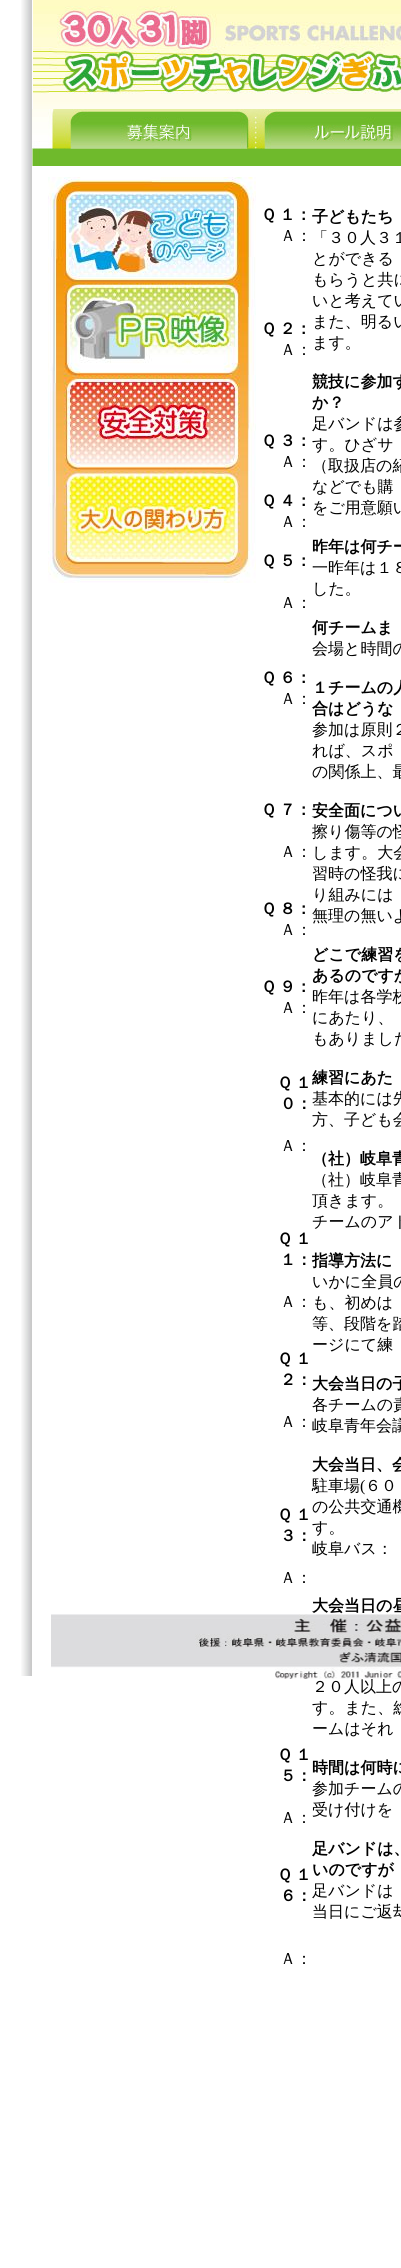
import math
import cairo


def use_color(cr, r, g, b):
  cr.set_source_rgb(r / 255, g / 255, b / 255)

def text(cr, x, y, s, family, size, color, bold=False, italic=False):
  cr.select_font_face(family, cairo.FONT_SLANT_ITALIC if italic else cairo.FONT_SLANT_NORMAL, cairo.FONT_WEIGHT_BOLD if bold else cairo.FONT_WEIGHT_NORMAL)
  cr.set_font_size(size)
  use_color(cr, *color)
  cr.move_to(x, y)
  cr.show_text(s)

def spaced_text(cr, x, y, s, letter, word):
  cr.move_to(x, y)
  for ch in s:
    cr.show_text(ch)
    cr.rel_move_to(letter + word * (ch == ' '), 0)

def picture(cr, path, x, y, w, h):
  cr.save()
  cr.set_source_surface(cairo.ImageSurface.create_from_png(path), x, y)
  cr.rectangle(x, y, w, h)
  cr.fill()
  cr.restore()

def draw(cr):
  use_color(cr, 255, 255, 255)
  cr.paint()
  picture(cr, "img_01.png", 21, 0, 11, 1676)
  picture(cr, "img_02.png", 33, 0, 368, 109)
  picture(cr, "img_03.png", 32, 109, 224, 57)
  picture(cr, "img_04.png", 256, 109, 145, 57)
  picture(cr, "img_05.png", 48, 177, 208, 106)
  picture(cr, "img_06.png", 48, 283, 208, 92)
  picture(cr, "img_07.png", 48, 375, 208, 96)
  picture(cr, "img_08.png", 48, 471, 208, 112)
  cr.select_font_face("WenQuanYi Zen Hei", cairo.FONT_SLANT_NORMAL, cairo.FONT_WEIGHT_BOLD)
  cr.set_font_size(16)
  use_color(cr, 0, 0, 0)
  spaced_text(cr, 261, 220, "Ｑ １：", 0, -1)
  text(cr, 280, 241, "Ａ：", "WenQuanYi Zen Hei Medium", 16, (0, 0, 0))
  cr.select_font_face("WenQuanYi Zen Hei", cairo.FONT_SLANT_NORMAL, cairo.FONT_WEIGHT_BOLD)
  spaced_text(cr, 261, 334, "Ｑ ２：", 0, -1)
  text(cr, 280, 355, "Ａ：", "WenQuanYi Zen Hei Medium", 16, (0, 0, 0))
  cr.select_font_face("WenQuanYi Zen Hei", cairo.FONT_SLANT_NORMAL, cairo.FONT_WEIGHT_BOLD)
  spaced_text(cr, 261, 446, "Ｑ ３：", 0, -1)
  text(cr, 280, 467, "Ａ：", "WenQuanYi Zen Hei Medium", 16, (0, 0, 0))
  cr.select_font_face("WenQuanYi Zen Hei", cairo.FONT_SLANT_NORMAL, cairo.FONT_WEIGHT_BOLD)
  spaced_text(cr, 261, 506, "Ｑ ４：", 0, -1)
  text(cr, 280, 527, "Ａ：", "WenQuanYi Zen Hei Medium", 16, (0, 0, 0))
  cr.select_font_face("WenQuanYi Zen Hei", cairo.FONT_SLANT_NORMAL, cairo.FONT_WEIGHT_BOLD)
  spaced_text(cr, 261, 566, "Ｑ ５：", 0, -1)
  text(cr, 280, 608, "Ａ：", "WenQuanYi Zen Hei Medium", 16, (0, 0, 0))
  cr.select_font_face("WenQuanYi Zen Hei", cairo.FONT_SLANT_NORMAL, cairo.FONT_WEIGHT_BOLD)
  spaced_text(cr, 261, 683, "Ｑ ６：", 0, -1)
  text(cr, 280, 704, "Ａ：", "WenQuanYi Zen Hei Medium", 16, (0, 0, 0))
  cr.select_font_face("WenQuanYi Zen Hei", cairo.FONT_SLANT_NORMAL, cairo.FONT_WEIGHT_BOLD)
  spaced_text(cr, 261, 815, "Ｑ ７：", 0, -1)
  text(cr, 280, 857, "Ａ：", "WenQuanYi Zen Hei Medium", 16, (0, 0, 0))
  cr.select_font_face("WenQuanYi Zen Hei", cairo.FONT_SLANT_NORMAL, cairo.FONT_WEIGHT_BOLD)
  spaced_text(cr, 261, 914, "Ｑ ８：", 0, -1)
  text(cr, 280, 935, "Ａ：", "WenQuanYi Zen Hei Medium", 16, (0, 0, 0))
  cr.select_font_face("WenQuanYi Zen Hei", cairo.FONT_SLANT_NORMAL, cairo.FONT_WEIGHT_BOLD)
  spaced_text(cr, 261, 992, "Ｑ ９：", 0, -1)
  text(cr, 280, 1013, "Ａ：", "WenQuanYi Zen Hei Medium", 16, (0, 0, 0))
  cr.select_font_face("WenQuanYi Zen Hei", cairo.FONT_SLANT_NORMAL, cairo.FONT_WEIGHT_BOLD)
  spaced_text(cr, 277, 1088, "Ｑ １", 0, -1)
  text(cr, 280, 1109, "０：", "WenQuanYi Zen Hei", 16, (0, 0, 0), bold=True)
  text(cr, 280, 1151, "Ａ：", "WenQuanYi Zen Hei Medium", 16, (0, 0, 0))
  cr.select_font_face("WenQuanYi Zen Hei", cairo.FONT_SLANT_NORMAL, cairo.FONT_WEIGHT_BOLD)
  spaced_text(cr, 277, 1244, "Ｑ １", 0, -1)
  text(cr, 280, 1265, "１：", "WenQuanYi Zen Hei", 16, (0, 0, 0), bold=True)
  text(cr, 280, 1307, "Ａ：", "WenQuanYi Zen Hei Medium", 16, (0, 0, 0))
  cr.select_font_face("WenQuanYi Zen Hei", cairo.FONT_SLANT_NORMAL, cairo.FONT_WEIGHT_BOLD)
  spaced_text(cr, 277, 1364, "Ｑ １", 0, -1)
  text(cr, 280, 1385, "２：", "WenQuanYi Zen Hei", 16, (0, 0, 0), bold=True)
  text(cr, 280, 1427, "Ａ：", "WenQuanYi Zen Hei Medium", 16, (0, 0, 0))
  cr.select_font_face("WenQuanYi Zen Hei", cairo.FONT_SLANT_NORMAL, cairo.FONT_WEIGHT_BOLD)
  spaced_text(cr, 277, 1520, "Ｑ １", 0, -1)
  text(cr, 280, 1541, "３：", "WenQuanYi Zen Hei", 16, (0, 0, 0), bold=True)
  text(cr, 280, 1583, "Ａ：", "WenQuanYi Zen Hei Medium", 16, (0, 0, 0))
  cr.select_font_face("WenQuanYi Zen Hei", cairo.FONT_SLANT_NORMAL, cairo.FONT_WEIGHT_BOLD)
  spaced_text(cr, 277, 1760, "Ｑ １", 0, -1)
  text(cr, 280, 1781, "５：", "WenQuanYi Zen Hei", 16, (0, 0, 0), bold=True)
  text(cr, 280, 1823, "Ａ：", "WenQuanYi Zen Hei Medium", 16, (0, 0, 0))
  cr.select_font_face("WenQuanYi Zen Hei", cairo.FONT_SLANT_NORMAL, cairo.FONT_WEIGHT_BOLD)
  spaced_text(cr, 277, 1880, "Ｑ １", 0, -1)
  text(cr, 280, 1901, "６：", "WenQuanYi Zen Hei", 16, (0, 0, 0), bold=True)
  text(cr, 280, 1964, "Ａ：", "WenQuanYi Zen Hei Medium", 16, (0, 0, 0))
  text(cr, 312, 222, "子どもたち", "WenQuanYi Zen Hei", 16, (0, 0, 0), bold=True)
  text(cr, 312, 243, "「３０人３１", "WenQuanYi Zen Hei Medium", 16, (0, 0, 0))
  text(cr, 312, 264, "とができる", "WenQuanYi Zen Hei Medium", 16, (0, 0, 0))
  text(cr, 312, 285, "もらうと共に", "WenQuanYi Zen Hei Medium", 16, (0, 0, 0))
  text(cr, 312, 306, "いと考えてい", "WenQuanYi Zen Hei Medium", 16, (0, 0, 0))
  text(cr, 312, 327, "また、明るい", "WenQuanYi Zen Hei Medium", 16, (0, 0, 0))
  text(cr, 312, 348, "ます。", "WenQuanYi Zen Hei Medium", 16, (0, 0, 0))
  text(cr, 312, 387, "競技に参加す", "WenQuanYi Zen Hei", 16, (0, 0, 0), bold=True)
  text(cr, 312, 408, "か？", "WenQuanYi Zen Hei", 16, (0, 0, 0), bold=True)
  text(cr, 312, 429, "足バンドは参", "WenQuanYi Zen Hei Medium", 16, (0, 0, 0))
  text(cr, 312, 450, "す。ひざサ", "WenQuanYi Zen Hei Medium", 16, (0, 0, 0))
  text(cr, 312, 471, "（取扱店の紹", "WenQuanYi Zen Hei Medium", 16, (0, 0, 0))
  text(cr, 312, 492, "などでも購", "WenQuanYi Zen Hei Medium", 16, (0, 0, 0))
  text(cr, 312, 513, "をご用意願い", "WenQuanYi Zen Hei Medium", 16, (0, 0, 0))
  text(cr, 312, 552, "昨年は何チー", "WenQuanYi Zen Hei", 16, (0, 0, 0), bold=True)
  text(cr, 312, 573, "一昨年は１８", "WenQuanYi Zen Hei Medium", 16, (0, 0, 0))
  text(cr, 312, 594, "した。", "WenQuanYi Zen Hei Medium", 16, (0, 0, 0))
  text(cr, 312, 633, "何チームま", "WenQuanYi Zen Hei", 16, (0, 0, 0), bold=True)
  text(cr, 312, 654, "会場と時間の", "WenQuanYi Zen Hei Medium", 16, (0, 0, 0))
  text(cr, 312, 693, "１チームの人", "WenQuanYi Zen Hei", 16, (0, 0, 0), bold=True)
  text(cr, 312, 714, "合はどうな", "WenQuanYi Zen Hei", 16, (0, 0, 0), bold=True)
  text(cr, 312, 735, "参加は原則２", "WenQuanYi Zen Hei Medium", 16, (0, 0, 0))
  text(cr, 312, 756, "れば、スポ", "WenQuanYi Zen Hei Medium", 16, (0, 0, 0))
  text(cr, 312, 777, "の関係上、最", "WenQuanYi Zen Hei Medium", 16, (0, 0, 0))
  text(cr, 312, 816, "安全面につい", "WenQuanYi Zen Hei", 16, (0, 0, 0), bold=True)
  text(cr, 312, 837, "擦り傷等の怪", "WenQuanYi Zen Hei Medium", 16, (0, 0, 0))
  text(cr, 312, 858, "します。大会", "WenQuanYi Zen Hei Medium", 16, (0, 0, 0))
  text(cr, 312, 879, "習時の怪我に", "WenQuanYi Zen Hei Medium", 16, (0, 0, 0))
  text(cr, 312, 900, "り組みには", "WenQuanYi Zen Hei Medium", 16, (0, 0, 0))
  text(cr, 312, 921, "無理の無いよ", "WenQuanYi Zen Hei Medium", 16, (0, 0, 0))
  text(cr, 312, 960, "どこで練習を", "WenQuanYi Zen Hei", 16, (0, 0, 0), bold=True)
  text(cr, 312, 981, "あるのですか", "WenQuanYi Zen Hei", 16, (0, 0, 0), bold=True)
  text(cr, 312, 1002, "昨年は各学校", "WenQuanYi Zen Hei Medium", 16, (0, 0, 0))
  text(cr, 312, 1023, "にあたり、", "WenQuanYi Zen Hei Medium", 16, (0, 0, 0))
  text(cr, 312, 1044, "もありました", "WenQuanYi Zen Hei Medium", 16, (0, 0, 0))
  text(cr, 312, 1083, "練習にあた", "WenQuanYi Zen Hei", 16, (0, 0, 0), bold=True)
  text(cr, 312, 1104, "基本的には先", "WenQuanYi Zen Hei Medium", 16, (0, 0, 0))
  text(cr, 312, 1125, "方、子ども会", "WenQuanYi Zen Hei Medium", 16, (0, 0, 0))
  text(cr, 312, 1164, "（社）岐阜青", "WenQuanYi Zen Hei", 16, (0, 0, 0), bold=True)
  text(cr, 312, 1185, "（社）岐阜青", "WenQuanYi Zen Hei Medium", 16, (0, 0, 0))
  text(cr, 312, 1206, "頂きます。", "WenQuanYi Zen Hei Medium", 16, (0, 0, 0))
  text(cr, 312, 1227, "チームのアド", "WenQuanYi Zen Hei Medium", 16, (0, 0, 0))
  text(cr, 312, 1266, "指導方法に", "WenQuanYi Zen Hei", 16, (0, 0, 0), bold=True)
  text(cr, 312, 1287, "いかに全員の", "WenQuanYi Zen Hei Medium", 16, (0, 0, 0))
  text(cr, 312, 1308, "も、初めは", "WenQuanYi Zen Hei Medium", 16, (0, 0, 0))
  text(cr, 312, 1329, "等、段階を踏", "WenQuanYi Zen Hei Medium", 16, (0, 0, 0))
  text(cr, 312, 1350, "ージにて練", "WenQuanYi Zen Hei Medium", 16, (0, 0, 0))
  text(cr, 312, 1389, "大会当日の子", "WenQuanYi Zen Hei", 16, (0, 0, 0), bold=True)
  text(cr, 312, 1410, "各チームの責", "WenQuanYi Zen Hei Medium", 16, (0, 0, 0))
  text(cr, 312, 1431, "岐阜青年会議", "WenQuanYi Zen Hei Medium", 16, (0, 0, 0))
  text(cr, 312, 1470, "大会当日、会", "WenQuanYi Zen Hei", 16, (0, 0, 0), bold=True)
  text(cr, 312, 1491, "駐車場", "WenQuanYi Zen Hei Medium", 16, (0, 0, 0))
  text(cr, 360, 1491, "(", "Liberation Serif", 16, (0, 0, 0))
  text(cr, 365, 1491, "６０", "WenQuanYi Zen Hei Medium", 16, (0, 0, 0))
  text(cr, 312, 1512, "の公共交通機", "WenQuanYi Zen Hei Medium", 16, (0, 0, 0))
  text(cr, 312, 1533, "す。", "WenQuanYi Zen Hei Medium", 16, (0, 0, 0))
  text(cr, 312, 1554, "岐阜バス：", "WenQuanYi Zen Hei Medium", 16, (0, 0, 0))
  text(cr, 312, 1611, "大会当日の昼", "WenQuanYi Zen Hei", 16, (0, 0, 0), bold=True)
  text(cr, 312, 1692, "２０人以上の", "WenQuanYi Zen Hei Medium", 16, (0, 0, 0))
  text(cr, 312, 1713, "す。また、総", "WenQuanYi Zen Hei Medium", 16, (0, 0, 0))
  text(cr, 312, 1734, "ームはそれ", "WenQuanYi Zen Hei Medium", 16, (0, 0, 0))
  text(cr, 312, 1773, "時間は何時に", "WenQuanYi Zen Hei", 16, (0, 0, 0), bold=True)
  text(cr, 312, 1794, "参加チームの", "WenQuanYi Zen Hei Medium", 16, (0, 0, 0))
  text(cr, 312, 1815, "受け付けを", "WenQuanYi Zen Hei Medium", 16, (0, 0, 0))
  text(cr, 312, 1854, "足バンドは、", "WenQuanYi Zen Hei", 16, (0, 0, 0), bold=True)
  text(cr, 312, 1875, "いのですが", "WenQuanYi Zen Hei", 16, (0, 0, 0), bold=True)
  text(cr, 312, 1896, "足バンドは", "WenQuanYi Zen Hei Medium", 16, (0, 0, 0))
  text(cr, 312, 1917, "当日にご返却", "WenQuanYi Zen Hei Medium", 16, (0, 0, 0))
  picture(cr, "img_09.png", 51, 1614, 350, 65)


surface = cairo.ImageSurface(cairo.FORMAT_RGB24, 401, 2268)
cr = cairo.Context(surface)
options = cairo.FontOptions()
options.set_hint_metrics(cairo.HINT_METRICS_OFF)
options.set_hint_style(cairo.HINT_STYLE_NONE)
cr.set_font_options(options)
cr.set_miter_limit(4)
draw(cr)
surface.write_to_png("out.png")
